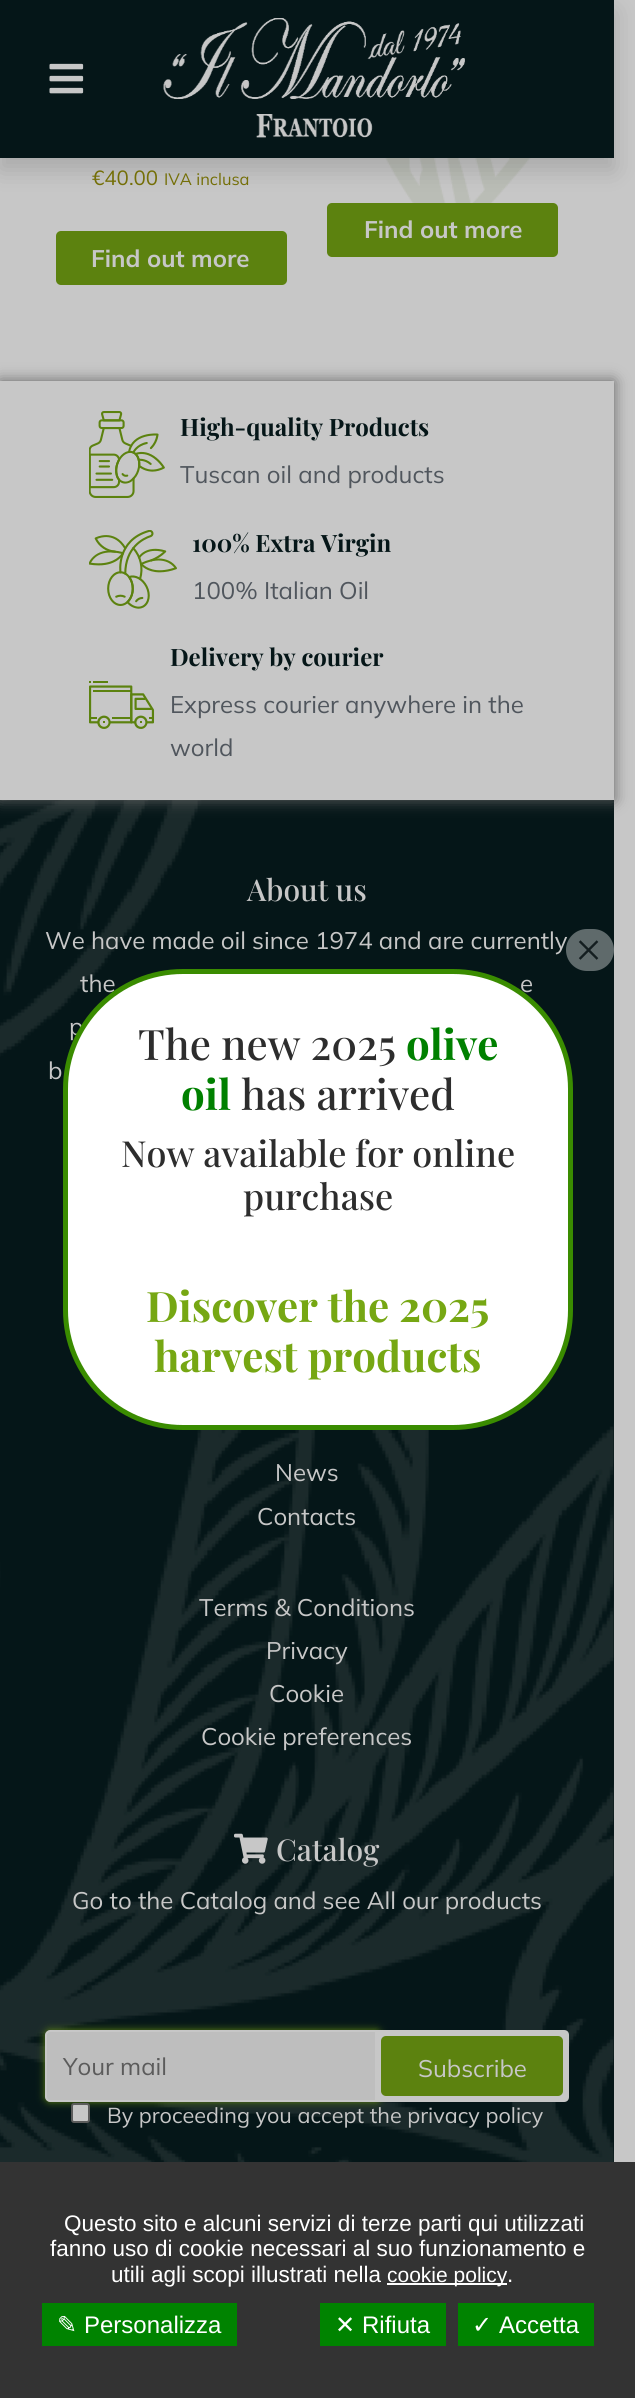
import math
import cairo


def use_color(cr, r, g, b):
  cr.set_source_rgb(r / 255, g / 255, b / 255)

def text(cr, x, y, s, family, size, color, bold=False, italic=False):
  cr.select_font_face(family, cairo.FONT_SLANT_ITALIC if italic else cairo.FONT_SLANT_NORMAL, cairo.FONT_WEIGHT_BOLD if bold else cairo.FONT_WEIGHT_NORMAL)
  cr.set_font_size(size)
  use_color(cr, *color)
  cr.move_to(x, y)
  cr.show_text(s)

def box(cr, x, y, w, h, *color):
  use_color(cr, *color)
  cr.rectangle(x, y, w, h)
  cr.fill()

def round_rect(cr, x, y, w, h, r):
  cr.new_sub_path()
  for i, (u, v) in enumerate([(x + w - r, y + h - r), (x + r, y + h - r), (x + r, y + r), (x + w - r, y + r)]):
    cr.arc(u, v, r, i * math.pi / 2, (i + 1) * math.pi / 2)
  cr.close_path()

def shadow(cr, x, y, w, h, r, blur, alpha):
  cr.push_group_with_content(cairo.CONTENT_ALPHA)
  cr.set_operator(cairo.OPERATOR_SOURCE)
  for i in range(15, -16, -2):
    e = blur * i / 6
    if min(w, h) + 2 * e > 0:
      cr.set_source_rgba(0, 0, 0, alpha * math.erfc((i - 1) / 8.5) / 2)
      round_rect(cr, x - e, y - e, w + 2 * e, h + 2 * e, max(0, min(r + e + blur * .6, min(w, h) / 2 + e)))
      cr.fill()
  cr.mask(cr.pop_group())

def picture(cr, path, x, y, w, h):
  cr.save()
  cr.set_source_surface(cairo.ImageSurface.create_from_png(path), x, y)
  cr.rectangle(x, y, w, h)
  cr.fill()
  cr.restore()

def draw(cr):
  use_color(cr, 199, 199, 199)
  cr.paint()
  picture(cr, "img_03.png", 384, 158, 147, 45)
  use_color(cr, 92, 130, 15)
  round_rect(cr, 327, 203, 231, 54, 5)
  cr.fill()
  use_color(cr, 0, 0, 0)
  shadow(cr, 0, 12, 614, 158, 0, 12, 0.15)
  box(cr, 0, 0, 614, 158, 5, 22, 24)
  picture(cr, "img_01.png", 49, 63, 35, 31)
  picture(cr, "img_02.png", 163, 18, 302, 120)
  use_color(cr, 92, 130, 15)
  round_rect(cr, 56, 231, 231, 54, 5)
  cr.fill()
  box(cr, 0, 800, 614, 1362, 5, 22, 24)
  picture(cr, "img_07.png", 0, 800, 614, 1362)
  use_color(cr, 100, 100, 100)
  shadow(cr, 0, 381, 614, 419, 0, 7.5, 1)
  box(cr, 0, 381, 614, 419, 199, 199, 199)
  picture(cr, "img_04.png", 89, 411, 76, 87)
  picture(cr, "img_05.png", 89, 530, 88, 79)
  picture(cr, "img_06.png", 89, 681, 66, 48)
  picture(cr, "img_08.png", 234, 1833, 34, 31)
  use_color(cr, 92, 130, 15)
  shadow(cr, 45, 2030, 336, 72, 5, 4, 1)
  use_color(cr, 190, 190, 190)
  cr.new_path()
  cr.move_to(50, 2031)
  cr.line_to(380, 2031)
  cr.line_to(380, 2101)
  cr.line_to(50, 2101)
  cr.curve_to(48, 2101, 46, 2099, 46, 2097)
  cr.line_to(46, 2035)
  cr.curve_to(46, 2033, 48, 2031, 50, 2031)
  cr.close_path()
  cr.fill_preserve()
  use_color(cr, 199, 199, 199)
  cr.stroke()
  cr.new_path()
  cr.move_to(375, 2030)
  cr.line_to(564, 2030)
  cr.curve_to(567, 2030, 569, 2032, 569, 2035)
  cr.line_to(569, 2097)
  cr.curve_to(569, 2100, 567, 2102, 564, 2102)
  cr.line_to(375, 2102)
  cr.close_path()
  cr.fill()
  use_color(cr, 92, 130, 15)
  round_rect(cr, 381, 2036, 182, 60, 5)
  cr.fill()
  use_color(cr, 199, 199, 199)
  round_rect(cr, 72, 2104, 17, 18, 2)
  cr.fill_preserve()
  use_color(cr, 92, 92, 92)
  cr.stroke()
  box(cr, 0, 2162, 635, 236, 51, 51, 51)
  box(cr, 387, 2283, 120, 2, 255, 255, 255)
  box(cr, 42, 2303, 195, 43, 0, 131, 0)
  box(cr, 320, 2303, 126, 43, 0, 131, 0)
  box(cr, 458, 2303, 136, 43, 0, 131, 0)
  text(cr, 92, 185, "€40.00", "Mulish", 20.5, (116, 111, 7))
  text(cr, 164, 185, "IVA inclusa", "Mulish", 16.5, (116, 111, 7))
  text(cr, 91, 267, "Find out more", "Mulish", 24, (199, 199, 199), bold=True)
  text(cr, 364, 238, "Find out more", "Mulish", 24, (199, 199, 199), bold=True)
  text(cr, 180, 436, "High-quality Products", "Playfair Display", 24, (5, 22, 24), bold=True)
  text(cr, 180, 483, "Tuscan oil and products", "Mulish", 24, (80, 86, 93))
  text(cr, 192, 552, "100% Extra Virgin", "Playfair Display", 24, (5, 22, 24), bold=True)
  text(cr, 192, 599, "100% Italian Oil", "Mulish", 24, (80, 86, 93))
  text(cr, 170, 666, "Delivery by courier", "Playfair Display", 24, (5, 22, 24), bold=True)
  text(cr, 170, 713, "Express courier anywhere in the", "Mulish", 24, (80, 86, 93))
  text(cr, 170, 756, "world", "Mulish", 24, (80, 86, 93))
  text(cr, 247, 901, "About us", "Playfair Display Medium", 30, (199, 199, 199))
  text(cr, 45, 949, "We have made oil since 1974 and are currently", "Mulish", 24, (199, 199, 199))
  text(cr, 80, 992, "the", "Mulish", 24, (199, 199, 199))
  text(cr, 520, 992, "e", "Mulish", 24, (199, 199, 199))
  text(cr, 69, 1035, "p", "Mulish", 24, (199, 199, 199))
  text(cr, 48, 1079, "b", "Mulish", 24, (199, 199, 199))
  text(cr, 275, 1481, "News", "Mulish", 24, (199, 199, 199))
  text(cr, 257, 1525, "Contacts", "Mulish", 24, (199, 199, 199))
  text(cr, 199, 1616, "Terms & Conditions", "Mulish", 24, (199, 199, 199))
  text(cr, 266, 1659, "Privacy", "Mulish", 24, (199, 199, 199))
  text(cr, 269, 1702, "Cookie", "Mulish", 24, (199, 199, 199))
  text(cr, 201, 1745, "Cookie preferences", "Mulish", 24, (199, 199, 199))
  text(cr, 276, 1861, "Catalog", "Playfair Display Medium", 30, (199, 199, 199))
  text(cr, 72, 1909, "Go to the Catalog and see All our products", "Mulish", 24, (199, 199, 199))
  text(cr, 63, 2075, "Your mail", "Mulish", 24, (91, 91, 91))
  text(cr, 418, 2077, "Subscribe", "Mulish", 24, (199, 199, 199))
  text(cr, 107, 2123, "By proceeding you accept the privacy policy", "Mulish", 21.6, (199, 199, 199))
  use_color(cr, 255, 255, 255)
  round_rect(cr, 65.5, 971.5, 505, 456, 117.5)
  cr.fill_preserve()
  use_color(cr, 58, 140, 0)
  cr.set_line_width(5)
  cr.stroke()
  use_color(cr, 95, 106, 107)
  round_rect(cr, 566, 929, 48, 42, 21)
  cr.fill()
  text(cr, 575, 966, "×", "Liberation Serif", 48, (20, 30, 32))
  text(cr, 138, 1060, "The new 2025", "Playfair Display Medium", 42, (45, 45, 45))
  text(cr, 406, 1060, "olive", "Playfair Display", 42, (0, 128, 0), bold=True)
  text(cr, 181, 1110, "oil", "Playfair Display", 42, (0, 128, 0), bold=True)
  text(cr, 241, 1110, "has arrived", "Playfair Display Medium", 42, (45, 45, 45))
  text(cr, 121, 1167, "Now available for online", "Playfair Display Medium", 36, (45, 45, 45))
  text(cr, 243, 1210, "purchase", "Playfair Display Medium", 36, (45, 45, 45))
  text(cr, 146, 1322, "Discover the 2025", "Playfair Display", 42, (118, 167, 19), bold=True)
  text(cr, 154, 1372, "harvest products", "Playfair Display", 42, (118, 167, 19), bold=True)
  text(cr, 64, 2231, "Questo sito e alcuni servizi di terze parti qui utilizzati", "Liberation Sans", 22.5, (255, 255, 255))
  text(cr, 50, 2256, "fanno uso di cookie necessari al suo funzionamento e", "Liberation Sans", 22.5, (255, 255, 255))
  text(cr, 111, 2282, "utili agli scopi illustrati nella", "Liberation Sans", 22.5, (255, 255, 255))
  text(cr, 387, 2282, "cookie policy", "Liberation Sans", 21, (255, 255, 255))
  text(cr, 507, 2282, ".", "Liberation Sans", 22.5, (255, 255, 255))
  text(cr, 57, 2333, "✎", "DejaVu Sans", 24, (255, 255, 255))
  text(cr, 84, 2333, "Personalizza", "Liberation Sans", 24, (255, 255, 255))
  text(cr, 335, 2333, "✕", "DejaVu Sans", 24, (255, 255, 255))
  text(cr, 362, 2333, "Rifiuta", "Liberation Sans", 24, (255, 255, 255))
  text(cr, 472, 2333, "✓", "DejaVu Sans", 24, (255, 255, 255))
  text(cr, 499, 2333, "Accetta", "Liberation Sans", 24, (255, 255, 255))


surface = cairo.ImageSurface(cairo.FORMAT_RGB24, 635, 2398)
cr = cairo.Context(surface)
options = cairo.FontOptions()
options.set_hint_metrics(cairo.HINT_METRICS_OFF)
options.set_hint_style(cairo.HINT_STYLE_NONE)
cr.set_font_options(options)
cr.set_miter_limit(4)
draw(cr)
surface.write_to_png("out.png")
